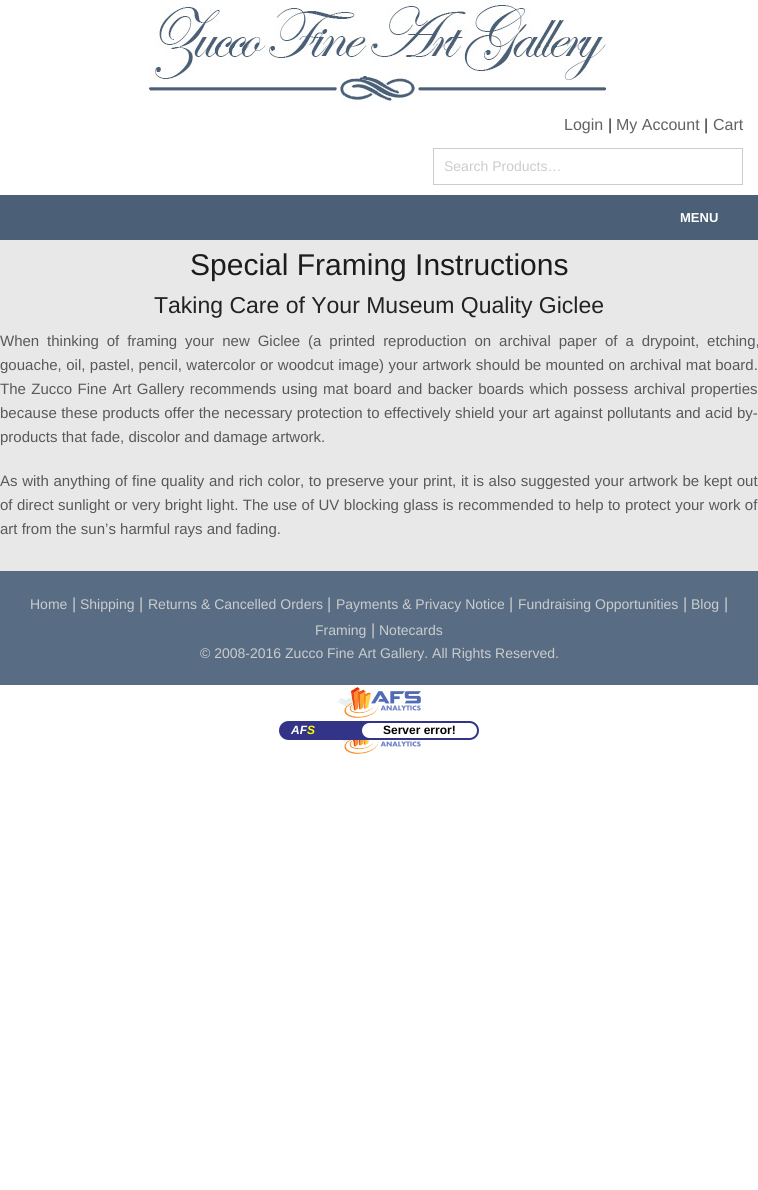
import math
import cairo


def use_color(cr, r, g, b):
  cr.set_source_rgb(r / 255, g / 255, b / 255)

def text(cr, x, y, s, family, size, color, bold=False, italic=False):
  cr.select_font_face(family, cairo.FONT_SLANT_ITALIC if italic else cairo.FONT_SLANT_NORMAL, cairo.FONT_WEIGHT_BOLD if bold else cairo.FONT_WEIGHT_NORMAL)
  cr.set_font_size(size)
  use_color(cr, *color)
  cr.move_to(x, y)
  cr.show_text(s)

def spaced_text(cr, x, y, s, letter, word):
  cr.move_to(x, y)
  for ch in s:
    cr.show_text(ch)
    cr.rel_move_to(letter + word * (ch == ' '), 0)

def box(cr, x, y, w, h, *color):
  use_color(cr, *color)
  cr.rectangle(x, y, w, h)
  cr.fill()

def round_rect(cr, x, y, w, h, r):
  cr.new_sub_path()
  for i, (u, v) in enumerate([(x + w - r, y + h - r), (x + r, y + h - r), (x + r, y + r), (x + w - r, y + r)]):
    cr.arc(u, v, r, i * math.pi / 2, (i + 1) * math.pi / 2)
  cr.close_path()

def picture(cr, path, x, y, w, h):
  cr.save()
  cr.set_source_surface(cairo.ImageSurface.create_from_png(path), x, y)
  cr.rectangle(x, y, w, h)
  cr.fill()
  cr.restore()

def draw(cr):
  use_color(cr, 255, 255, 255)
  cr.paint()
  picture(cr, "img_01.png", 148, 0, 462, 102)
  cr.rectangle(433.5, 148.5, 309, 36)
  use_color(cr, 204, 204, 204)
  cr.set_line_width(1)
  cr.stroke()
  box(cr, 0, 195, 758, 45, 75, 96, 119)
  box(cr, 0, 240, 758, 331, 232, 232, 232)
  box(cr, 0, 571, 758, 114, 88, 109, 132)
  picture(cr, "img_02.png", 337, 687, 84, 31)
  use_color(cr, 51, 51, 136)
  round_rect(cr, 279, 721, 200, 19, 9.5)
  cr.fill()
  use_color(cr, 255, 255, 255)
  round_rect(cr, 362, 723, 115, 15, 7.5)
  cr.fill()
  picture(cr, "img_03.png", 337, 740, 84, 14)
  text(cr, 564, 130, "Login", "Liberation Sans", 16, (97, 97, 97))
  text(cr, 608, 130, "|", "Liberation Sans", 16, (34, 34, 34))
  text(cr, 616, 130, "My Account", "Liberation Sans", 16, (97, 97, 97))
  text(cr, 704, 130, "|", "Liberation Sans", 16, (34, 34, 34))
  text(cr, 713, 130, "Cart", "Liberation Sans", 16, (97, 97, 97))
  text(cr, 444, 171, "Search Products…", "Liberation Sans", 14, (204, 204, 204))
  text(cr, 680, 222, "MENU", "Liberation Sans", 13, (255, 255, 255), bold=True)
  text(cr, 190, 275, "Special Framing Instructions", "Liberation Sans", 30, (28, 28, 28))
  text(cr, 154, 313, "Taking Care of Your Museum Quality Giclee", "Liberation Sans", 23, (34, 34, 34))
  cr.set_font_size(15)
  use_color(cr, 88, 89, 91)
  spaced_text(cr, 0, 346, "When thinking of framing your new Giclee (a printed reproduction on archival paper of a drypoint, etching,", 0, 3.75)
  spaced_text(cr, 0, 370, "gouache, oil, pastel, pencil, watercolor or woodcut image) your artwork should be mounted on archival mat board.", 0, 0.3)
  spaced_text(cr, 0, 394, "The Zucco Fine Art Gallery recommends using mat board and backer boards which possess archival properties", 0, 1.25)
  spaced_text(cr, 0, 418, "because these products offer the necessary protection to effectively shield your art against pollutants and acid by-", 0, 0.25)
  text(cr, 0, 442, "products that fade, discolor and damage artwork.", "Liberation Sans", 15, (88, 89, 91))
  spaced_text(cr, 0, 486, "As with anything of fine quality and rich color, to preserve your print, it is also suggested your artwork be kept out", 0, 0.5)
  spaced_text(cr, 0, 510, "of direct sunlight or very bright light. The use of UV blocking glass is recommended to help to protect your work of", 0, 0.25)
  text(cr, 0, 534, "art from the sun’s harmful rays and fading.", "Liberation Sans", 15, (88, 89, 91))
  text(cr, 30, 609, "Home", "Liberation Sans", 14, (204, 204, 204))
  text(cr, 72, 609, "|", "Liberation Sans", 16, (204, 204, 204))
  text(cr, 80, 609, "Shipping", "Liberation Sans", 14, (204, 204, 204))
  text(cr, 139, 609, "|", "Liberation Sans", 16, (204, 204, 204))
  text(cr, 148, 609, "Returns & Cancelled Orders", "Liberation Sans", 14, (204, 204, 204))
  text(cr, 327, 609, "|", "Liberation Sans", 16, (204, 204, 204))
  text(cr, 336, 609, "Payments & Privacy Notice", "Liberation Sans", 14, (204, 204, 204))
  text(cr, 509, 609, "|", "Liberation Sans", 16, (204, 204, 204))
  text(cr, 518, 609, "Fundraising Opportunities", "Liberation Sans", 14, (204, 204, 204))
  text(cr, 683, 609, "|", "Liberation Sans", 16, (204, 204, 204))
  text(cr, 691, 609, "Blog", "Liberation Sans", 14, (204, 204, 204))
  text(cr, 724, 609, "|", "Liberation Sans", 16, (204, 204, 204))
  text(cr, 315, 635, "Framing", "Liberation Sans", 14, (204, 204, 204))
  text(cr, 371, 635, "|", "Liberation Sans", 16, (204, 204, 204))
  text(cr, 379, 635, "Notecards", "Liberation Sans", 14, (204, 204, 204))
  text(cr, 200, 658, "© 2008-2016 Zucco Fine Art Gallery. All Rights Reserved.", "Liberation Sans", 14, (204, 204, 204))
  text(cr, 291, 734, "AF", "Liberation Sans", 12, (255, 255, 255), bold=True, italic=True)
  text(cr, 307, 734, "S", "Liberation Sans", 12, (255, 255, 0), bold=True, italic=True)
  text(cr, 383, 734, "Server error!", "Liberation Sans", 12, (0, 0, 0), bold=True)


surface = cairo.ImageSurface(cairo.FORMAT_RGB24, 758, 1190)
cr = cairo.Context(surface)
options = cairo.FontOptions()
options.set_hint_metrics(cairo.HINT_METRICS_OFF)
options.set_hint_style(cairo.HINT_STYLE_NONE)
cr.set_font_options(options)
cr.set_miter_limit(4)
draw(cr)
surface.write_to_png("out.png")
